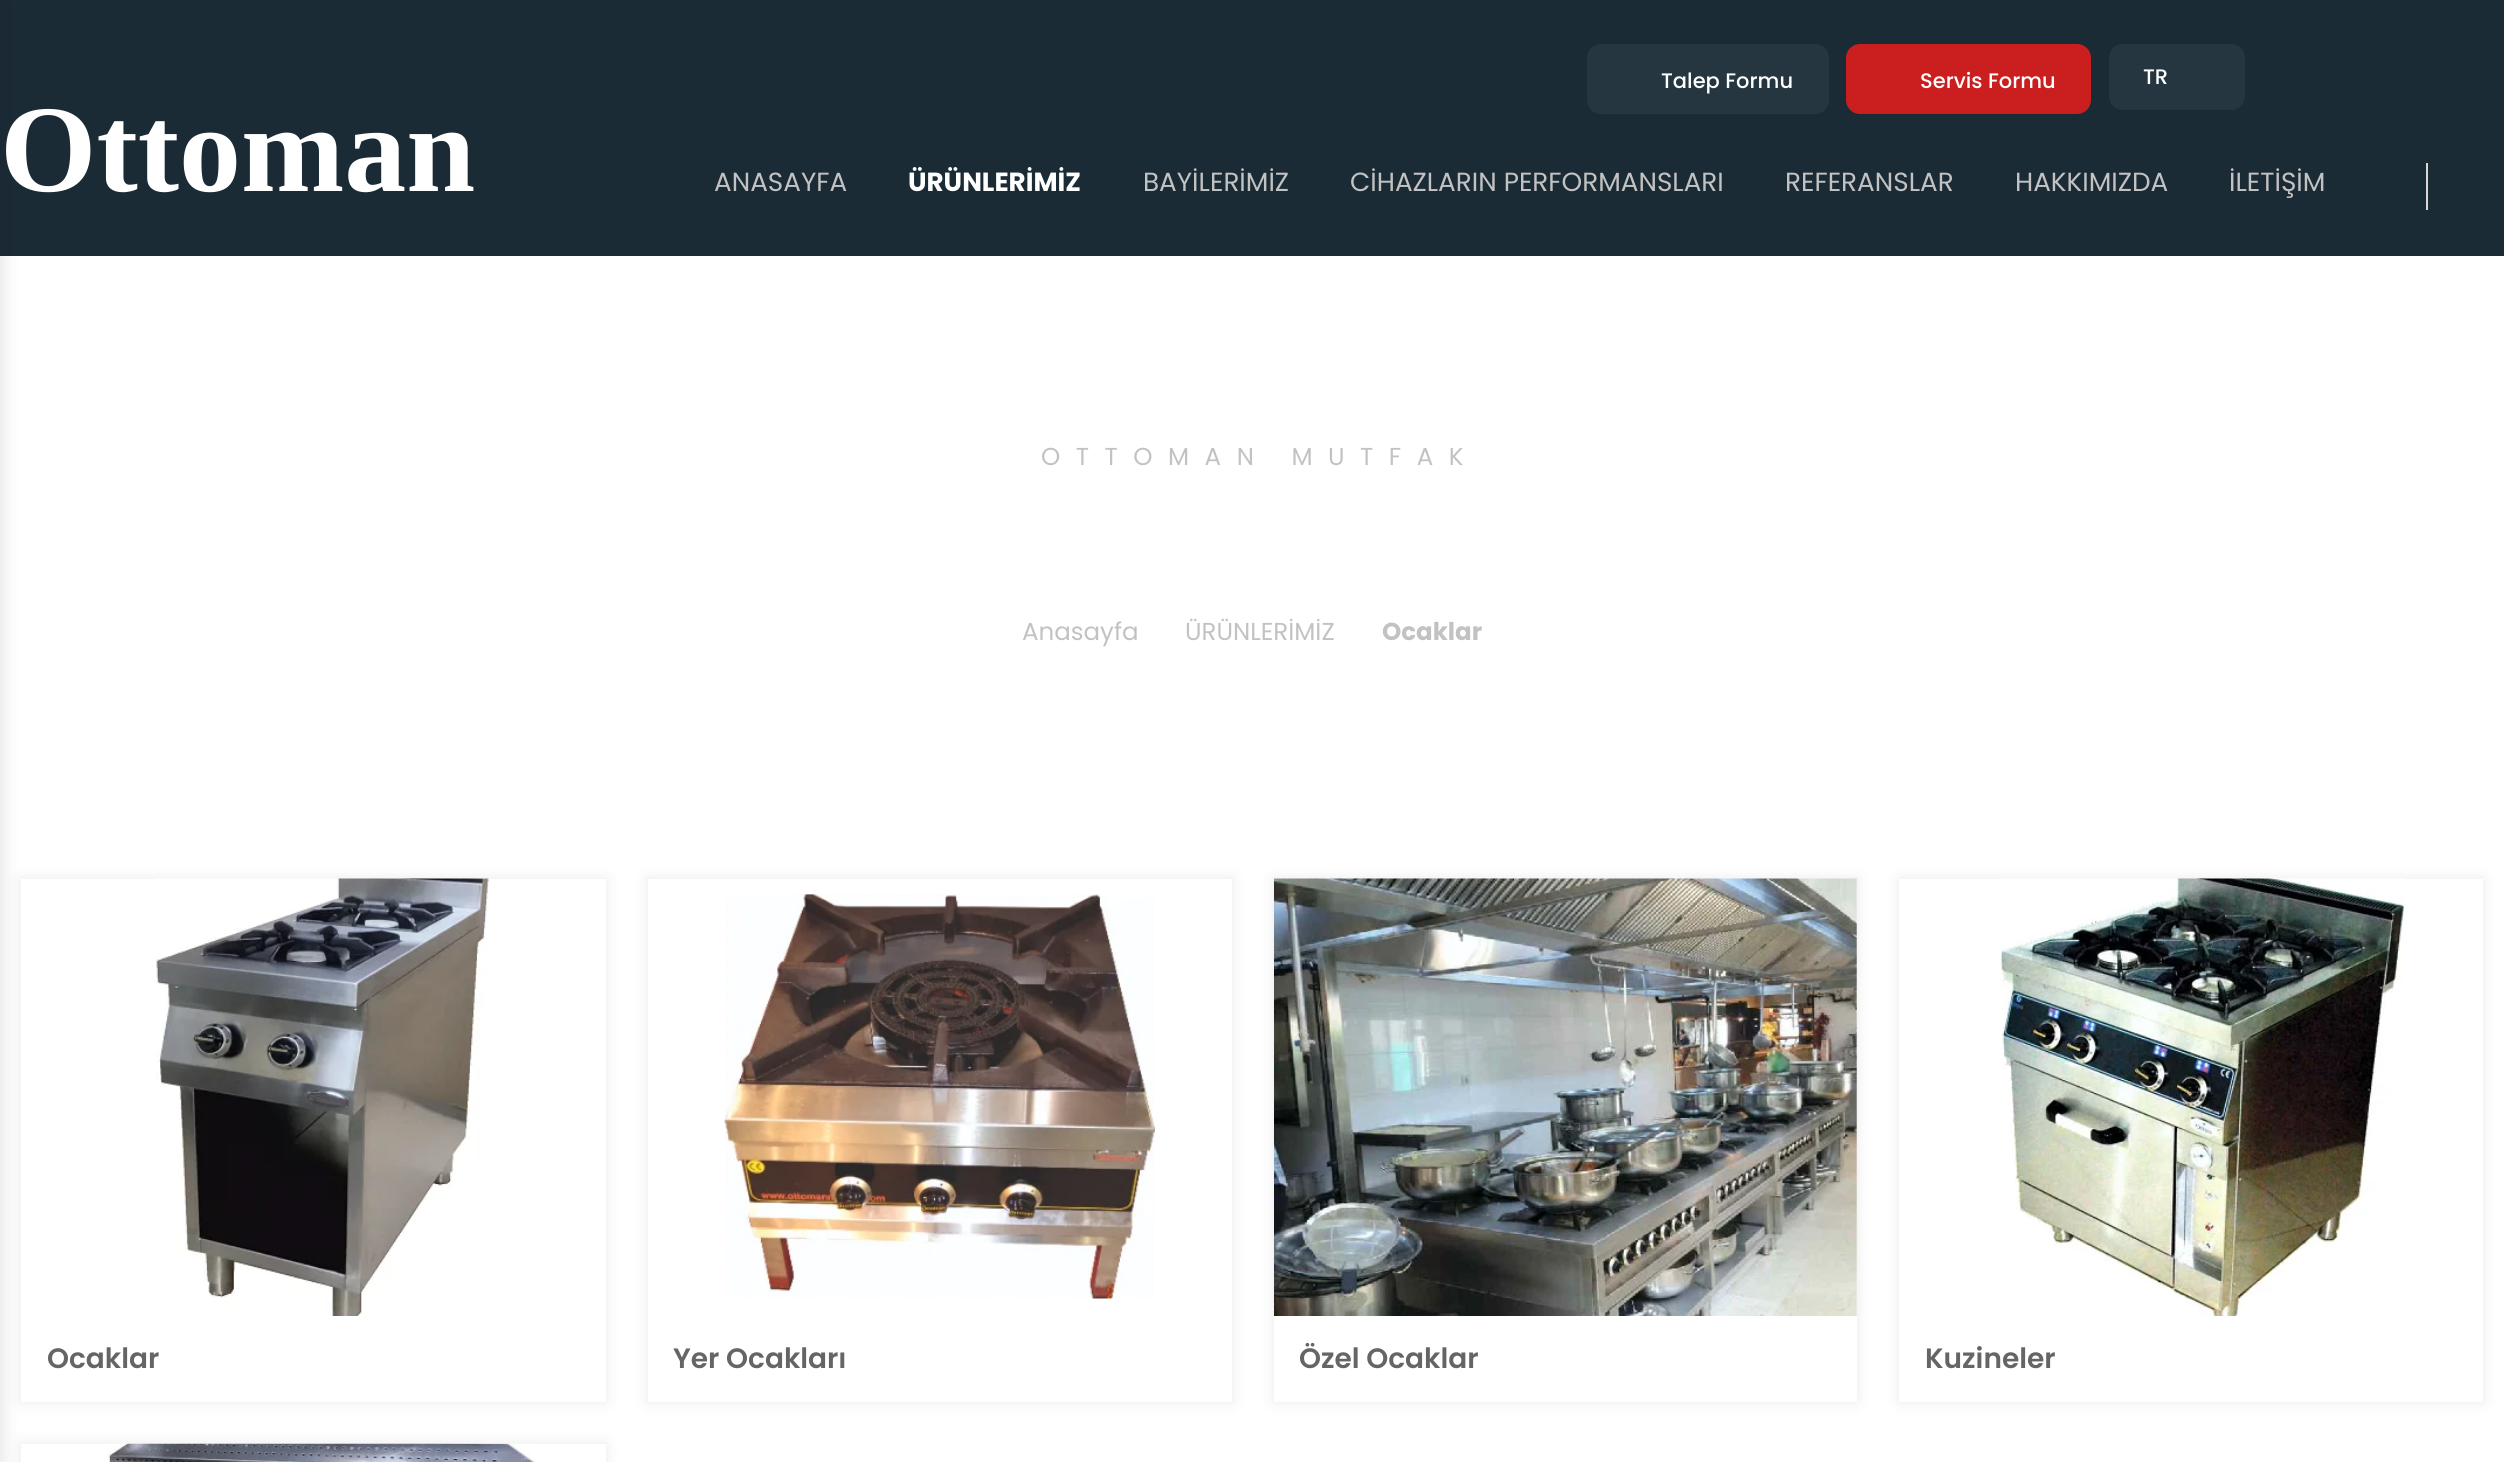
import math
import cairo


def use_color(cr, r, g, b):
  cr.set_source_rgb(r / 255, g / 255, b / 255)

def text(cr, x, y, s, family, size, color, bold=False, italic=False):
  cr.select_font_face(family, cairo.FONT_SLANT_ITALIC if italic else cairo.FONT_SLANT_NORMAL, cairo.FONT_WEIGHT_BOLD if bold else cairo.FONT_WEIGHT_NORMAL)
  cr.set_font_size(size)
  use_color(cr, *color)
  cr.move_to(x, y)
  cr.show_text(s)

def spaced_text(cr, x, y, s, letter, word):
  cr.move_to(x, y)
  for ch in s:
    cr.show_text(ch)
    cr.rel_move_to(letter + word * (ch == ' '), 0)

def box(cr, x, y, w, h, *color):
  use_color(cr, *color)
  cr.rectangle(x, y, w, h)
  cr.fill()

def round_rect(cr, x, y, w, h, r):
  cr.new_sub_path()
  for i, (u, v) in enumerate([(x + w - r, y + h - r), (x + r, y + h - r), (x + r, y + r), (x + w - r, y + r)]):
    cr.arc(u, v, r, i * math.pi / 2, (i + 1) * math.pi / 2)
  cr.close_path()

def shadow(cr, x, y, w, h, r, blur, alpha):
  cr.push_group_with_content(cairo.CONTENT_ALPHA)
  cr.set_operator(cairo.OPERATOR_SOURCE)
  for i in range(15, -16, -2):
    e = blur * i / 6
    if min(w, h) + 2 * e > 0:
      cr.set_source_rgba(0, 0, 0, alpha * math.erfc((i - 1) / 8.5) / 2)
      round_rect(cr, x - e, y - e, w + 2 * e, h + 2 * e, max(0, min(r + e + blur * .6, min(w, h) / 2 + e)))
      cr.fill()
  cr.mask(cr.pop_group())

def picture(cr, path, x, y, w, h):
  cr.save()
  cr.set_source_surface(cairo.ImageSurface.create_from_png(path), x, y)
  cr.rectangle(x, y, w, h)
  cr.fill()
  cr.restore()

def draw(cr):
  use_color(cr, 255, 255, 255)
  cr.paint()
  box(cr, 0, 0, 2504, 256, 27, 43, 54)
  use_color(cr, 0, 0, 0)
  shadow(cr, -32, 0, 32, 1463, 0, 10.5, 0.14)
  use_color(cr, 38, 54, 64)
  round_rect(cr, 1587, 44, 242, 70, 14)
  cr.fill()
  use_color(cr, 203, 31, 31)
  round_rect(cr, 1846, 44, 245, 70, 14)
  cr.fill()
  use_color(cr, 38, 54, 64)
  round_rect(cr, 2109, 44, 136, 66, 14)
  cr.fill()
  box(cr, 2426, 163, 2, 47, 216, 216, 216)
  cr.save()
  cr.set_fill_rule(cairo.FILL_RULE_EVEN_ODD)
  cr.new_path()
  cr.move_to(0, 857)
  cr.line_to(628, 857)
  cr.line_to(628, 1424)
  cr.line_to(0, 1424)
  cr.close_path()
  cr.move_to(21, 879)
  cr.line_to(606, 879)
  cr.line_to(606, 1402)
  cr.line_to(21, 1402)
  cr.close_path()
  cr.clip()
  use_color(cr, 0, 0, 0)
  shadow(cr, 21, 879, 585, 523, 0, 7, 0.09)
  cr.restore()
  picture(cr, "img_01.png", 156, 878, 333, 438)
  cr.save()
  cr.set_fill_rule(cairo.FILL_RULE_EVEN_ODD)
  cr.new_path()
  cr.move_to(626, 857)
  cr.line_to(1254, 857)
  cr.line_to(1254, 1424)
  cr.line_to(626, 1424)
  cr.close_path()
  cr.move_to(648, 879)
  cr.line_to(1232, 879)
  cr.line_to(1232, 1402)
  cr.line_to(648, 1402)
  cr.close_path()
  cr.clip()
  use_color(cr, 0, 0, 0)
  shadow(cr, 648, 879, 584, 523, 0, 7, 0.09)
  cr.restore()
  picture(cr, "img_02.png", 724, 894, 431, 405)
  cr.save()
  cr.set_fill_rule(cairo.FILL_RULE_EVEN_ODD)
  cr.new_path()
  cr.move_to(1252, 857)
  cr.line_to(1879, 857)
  cr.line_to(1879, 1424)
  cr.line_to(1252, 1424)
  cr.close_path()
  cr.move_to(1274, 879)
  cr.line_to(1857, 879)
  cr.line_to(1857, 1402)
  cr.line_to(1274, 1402)
  cr.close_path()
  cr.clip()
  use_color(cr, 0, 0, 0)
  shadow(cr, 1274, 879, 583, 523, 0, 7, 0.09)
  cr.restore()
  picture(cr, "img_03.png", 1274, 878, 583, 438)
  cr.save()
  cr.set_fill_rule(cairo.FILL_RULE_EVEN_ODD)
  cr.new_path()
  cr.move_to(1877, 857)
  cr.line_to(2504, 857)
  cr.line_to(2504, 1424)
  cr.line_to(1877, 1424)
  cr.close_path()
  cr.move_to(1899, 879)
  cr.line_to(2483, 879)
  cr.line_to(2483, 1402)
  cr.line_to(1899, 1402)
  cr.close_path()
  cr.clip()
  use_color(cr, 0, 0, 0)
  shadow(cr, 1899, 879, 584, 523, 0, 7, 0.09)
  cr.restore()
  picture(cr, "img_04.png", 2001, 878, 403, 438)
  cr.save()
  cr.set_fill_rule(cairo.FILL_RULE_EVEN_ODD)
  cr.new_path()
  cr.move_to(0, 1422)
  cr.line_to(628, 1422)
  cr.line_to(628, 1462)
  cr.line_to(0, 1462)
  cr.close_path()
  cr.move_to(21, 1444)
  cr.line_to(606, 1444)
  cr.line_to(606, 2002)
  cr.line_to(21, 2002)
  cr.close_path()
  cr.clip()
  use_color(cr, 0, 0, 0)
  shadow(cr, 21, 1444, 585, 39, 0, 7, 0.09)
  cr.restore()
  picture(cr, "img_05.png", 108, 1443, 427, 19)
  text(cr, 1661, 88, "Talep Formu", "Poppins Medium", 21, (255, 255, 255))
  text(cr, 1920, 88, "Servis Formu", "Poppins Medium", 21, (255, 255, 255))
  text(cr, 2143, 84, "TR", "Poppins Medium", 21, (255, 255, 255))
  text(cr, 0, 191, "Ottoman", "Liberation Serif", 124, (255, 255, 255), bold=True)
  text(cr, 714, 191, "ANASAYFA", "Poppins", 26.25, (194, 194, 194))
  text(cr, 908, 191, "ÜRÜNLERİMİZ", "Poppins", 26.25, (255, 255, 255), bold=True)
  text(cr, 1143, 191, "BAYİLERİMİZ", "Poppins", 26.25, (194, 194, 194))
  text(cr, 1350, 191, "CİHAZLARIN PERFORMANSLARI", "Poppins", 26.25, (194, 194, 194))
  text(cr, 1785, 191, "REFERANSLAR", "Poppins", 26.25, (194, 194, 194))
  text(cr, 2015, 191, "HAKKIMIZDA", "Poppins", 26.25, (194, 194, 194))
  text(cr, 2229, 191, "İLETİŞİM", "Poppins", 26.25, (194, 194, 194))
  cr.set_font_size(24.5)
  spaced_text(cr, 1041, 465, "OTTOMAN MUTFAK", 15.5, 0)
  text(cr, 1022, 640, "Anasayfa", "Poppins", 24.5, (194, 194, 194))
  text(cr, 1185, 640, "ÜRÜNLERİMİZ", "Poppins", 24.5, (194, 194, 194))
  text(cr, 1382, 640, "Ocaklar", "Poppins", 24.5, (194, 194, 194), bold=True)
  text(cr, 47, 1368, "Ocaklar", "Poppins SemiBold", 28, (101, 101, 101))
  text(cr, 673, 1368, "Yer Ocakları", "Poppins SemiBold", 28, (101, 101, 101))
  text(cr, 1299, 1368, "Özel Ocaklar", "Poppins SemiBold", 28, (101, 101, 101))
  text(cr, 1925, 1368, "Kuzineler", "Poppins SemiBold", 28, (101, 101, 101))


surface = cairo.ImageSurface(cairo.FORMAT_RGB24, 2504, 1462)
cr = cairo.Context(surface)
options = cairo.FontOptions()
options.set_hint_metrics(cairo.HINT_METRICS_OFF)
options.set_hint_style(cairo.HINT_STYLE_NONE)
cr.set_font_options(options)
cr.set_miter_limit(4)
draw(cr)
surface.write_to_png("out.png")
